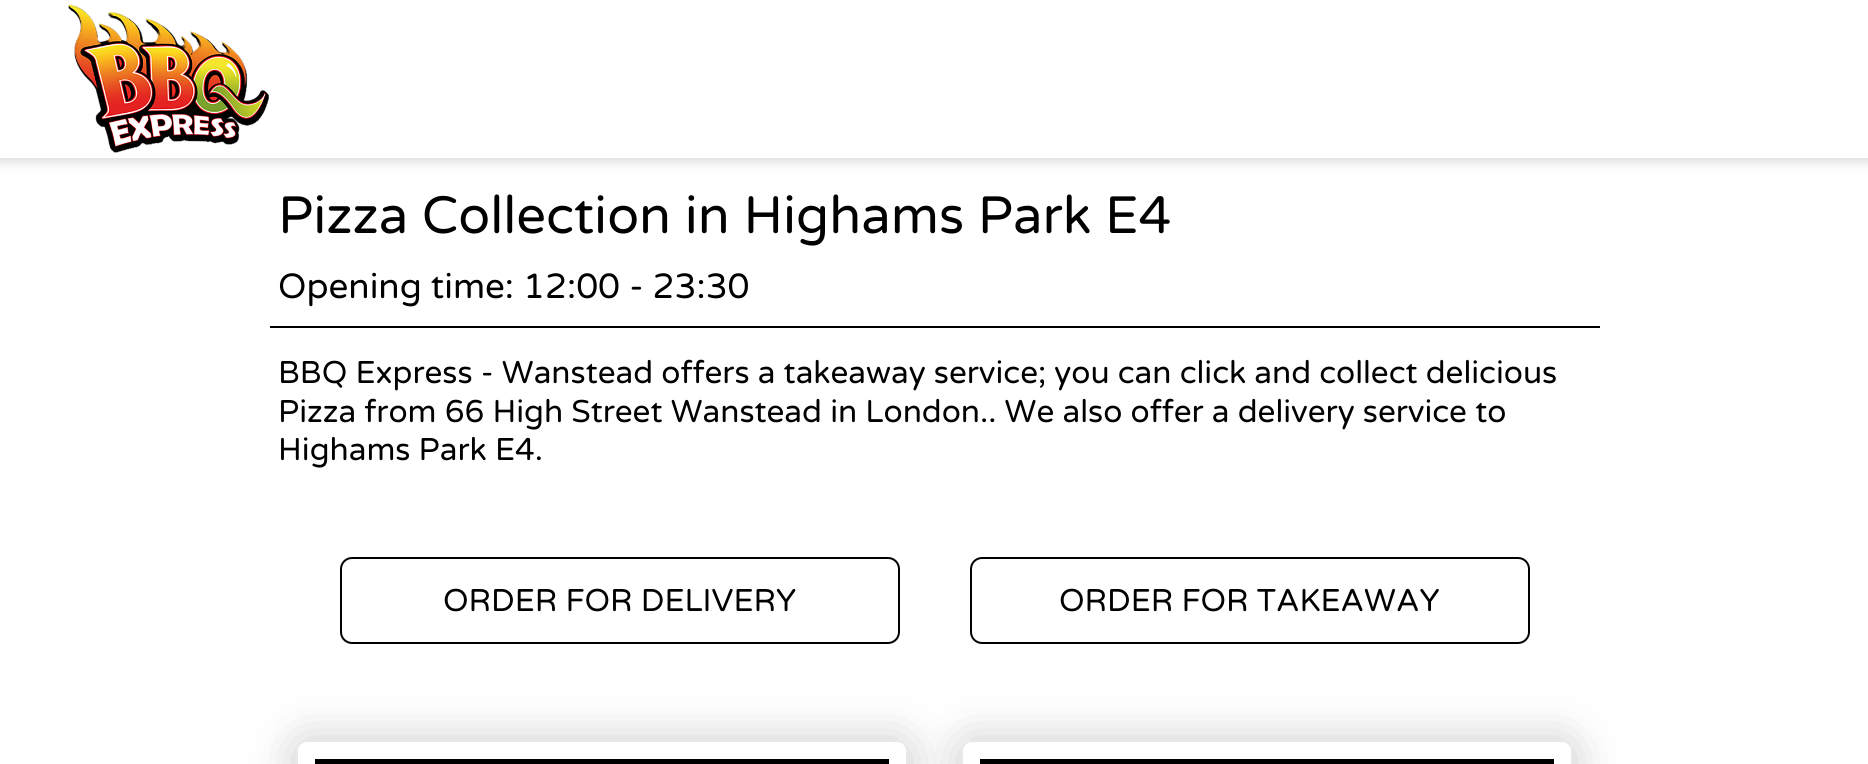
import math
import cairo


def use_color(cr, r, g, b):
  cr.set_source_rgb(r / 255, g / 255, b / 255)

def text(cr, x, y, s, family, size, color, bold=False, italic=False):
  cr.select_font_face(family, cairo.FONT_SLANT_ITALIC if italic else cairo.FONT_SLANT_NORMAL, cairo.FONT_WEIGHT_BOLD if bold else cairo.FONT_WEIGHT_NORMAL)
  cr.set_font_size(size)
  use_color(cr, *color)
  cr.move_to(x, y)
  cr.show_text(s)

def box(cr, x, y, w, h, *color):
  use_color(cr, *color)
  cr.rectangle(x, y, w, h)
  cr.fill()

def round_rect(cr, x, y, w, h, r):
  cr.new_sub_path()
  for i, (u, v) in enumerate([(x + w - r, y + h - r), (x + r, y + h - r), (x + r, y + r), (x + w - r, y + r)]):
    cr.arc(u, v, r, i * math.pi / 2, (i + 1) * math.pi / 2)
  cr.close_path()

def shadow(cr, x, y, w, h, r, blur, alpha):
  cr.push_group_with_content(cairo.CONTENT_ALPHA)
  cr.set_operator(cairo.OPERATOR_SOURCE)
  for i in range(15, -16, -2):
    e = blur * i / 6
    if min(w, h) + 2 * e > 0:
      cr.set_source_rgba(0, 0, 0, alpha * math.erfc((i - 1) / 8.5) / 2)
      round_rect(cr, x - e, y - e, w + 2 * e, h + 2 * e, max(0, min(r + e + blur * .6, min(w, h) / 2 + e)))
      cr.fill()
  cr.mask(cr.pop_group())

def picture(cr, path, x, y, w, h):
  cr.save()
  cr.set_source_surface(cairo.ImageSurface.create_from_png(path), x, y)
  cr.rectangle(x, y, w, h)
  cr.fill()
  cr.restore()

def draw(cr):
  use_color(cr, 255, 255, 255)
  cr.paint()
  use_color(cr, 53, 53, 53)
  shadow(cr, -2, -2, 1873, 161, 0, 7, 0.25)
  box(cr, 0, 0, 1868, 158, 255, 255, 255)
  picture(cr, "img_01.png", 68, 4, 201, 149)
  box(cr, 270, 326, 1330, 2, 0, 0, 0)
  round_rect(cr, 341, 558, 558, 85, 11)
  cr.stroke()
  round_rect(cr, 971, 558, 558, 85, 11)
  cr.stroke()
  use_color(cr, 53, 53, 53)
  shadow(cr, 294, 739, 616, 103, 12, 22, 0.25)
  use_color(cr, 255, 255, 255)
  cr.new_path()
  cr.move_to(307, 740)
  cr.line_to(897, 740)
  cr.curve_to(903, 740, 908, 745, 908, 751)
  cr.line_to(908, 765)
  cr.line_to(296, 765)
  cr.line_to(296, 751)
  cr.curve_to(296, 745, 301, 740, 307, 740)
  cr.close_path()
  cr.fill()
  round_rect(cr, 297, 741, 610, 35, 10)
  use_color(cr, 232, 232, 232)
  cr.stroke()
  box(cr, 315, 759, 574, 5, 0, 0, 0)
  use_color(cr, 53, 53, 53)
  shadow(cr, 959, 739, 616, 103, 12, 22, 0.25)
  use_color(cr, 255, 255, 255)
  cr.new_path()
  cr.move_to(972, 740)
  cr.line_to(1562, 740)
  cr.curve_to(1568, 740, 1573, 745, 1573, 751)
  cr.line_to(1573, 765)
  cr.line_to(961, 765)
  cr.line_to(961, 751)
  cr.curve_to(961, 745, 966, 740, 972, 740)
  cr.close_path()
  cr.fill()
  round_rect(cr, 962, 741, 610, 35, 10)
  use_color(cr, 232, 232, 232)
  cr.stroke()
  box(cr, 980, 759, 574, 5, 0, 0, 0)
  text(cr, 278, 233, "Pizza Collection in Highams Park E4", "Varela Round", 52.5, (0, 0, 0))
  text(cr, 278, 298, "Opening time: 12:00 - 23:30", "Varela Round", 35, (0, 0, 0))
  text(cr, 278, 383, "BBQ Express - Wanstead offers a takeaway service; you can click and collect delicious", "Varela Round", 31.5, (0, 0, 0))
  text(cr, 278, 422, "Pizza from 66 High Street Wanstead in London.. We also offer a delivery service to", "Varela Round", 31.5, (0, 0, 0))
  text(cr, 278, 460, "Highams Park E4.", "Varela Round", 31.5, (0, 0, 0))
  text(cr, 443, 611, "ORDER FOR DELIVERY", "Varela Round", 31.5, (0, 0, 0))
  text(cr, 1059, 611, "ORDER FOR TAKEAWAY", "Varela Round", 31.5, (0, 0, 0))


surface = cairo.ImageSurface(cairo.FORMAT_RGB24, 1868, 764)
cr = cairo.Context(surface)
options = cairo.FontOptions()
options.set_hint_metrics(cairo.HINT_METRICS_OFF)
options.set_hint_style(cairo.HINT_STYLE_NONE)
cr.set_font_options(options)
cr.set_miter_limit(4)
draw(cr)
surface.write_to_png("out.png")
